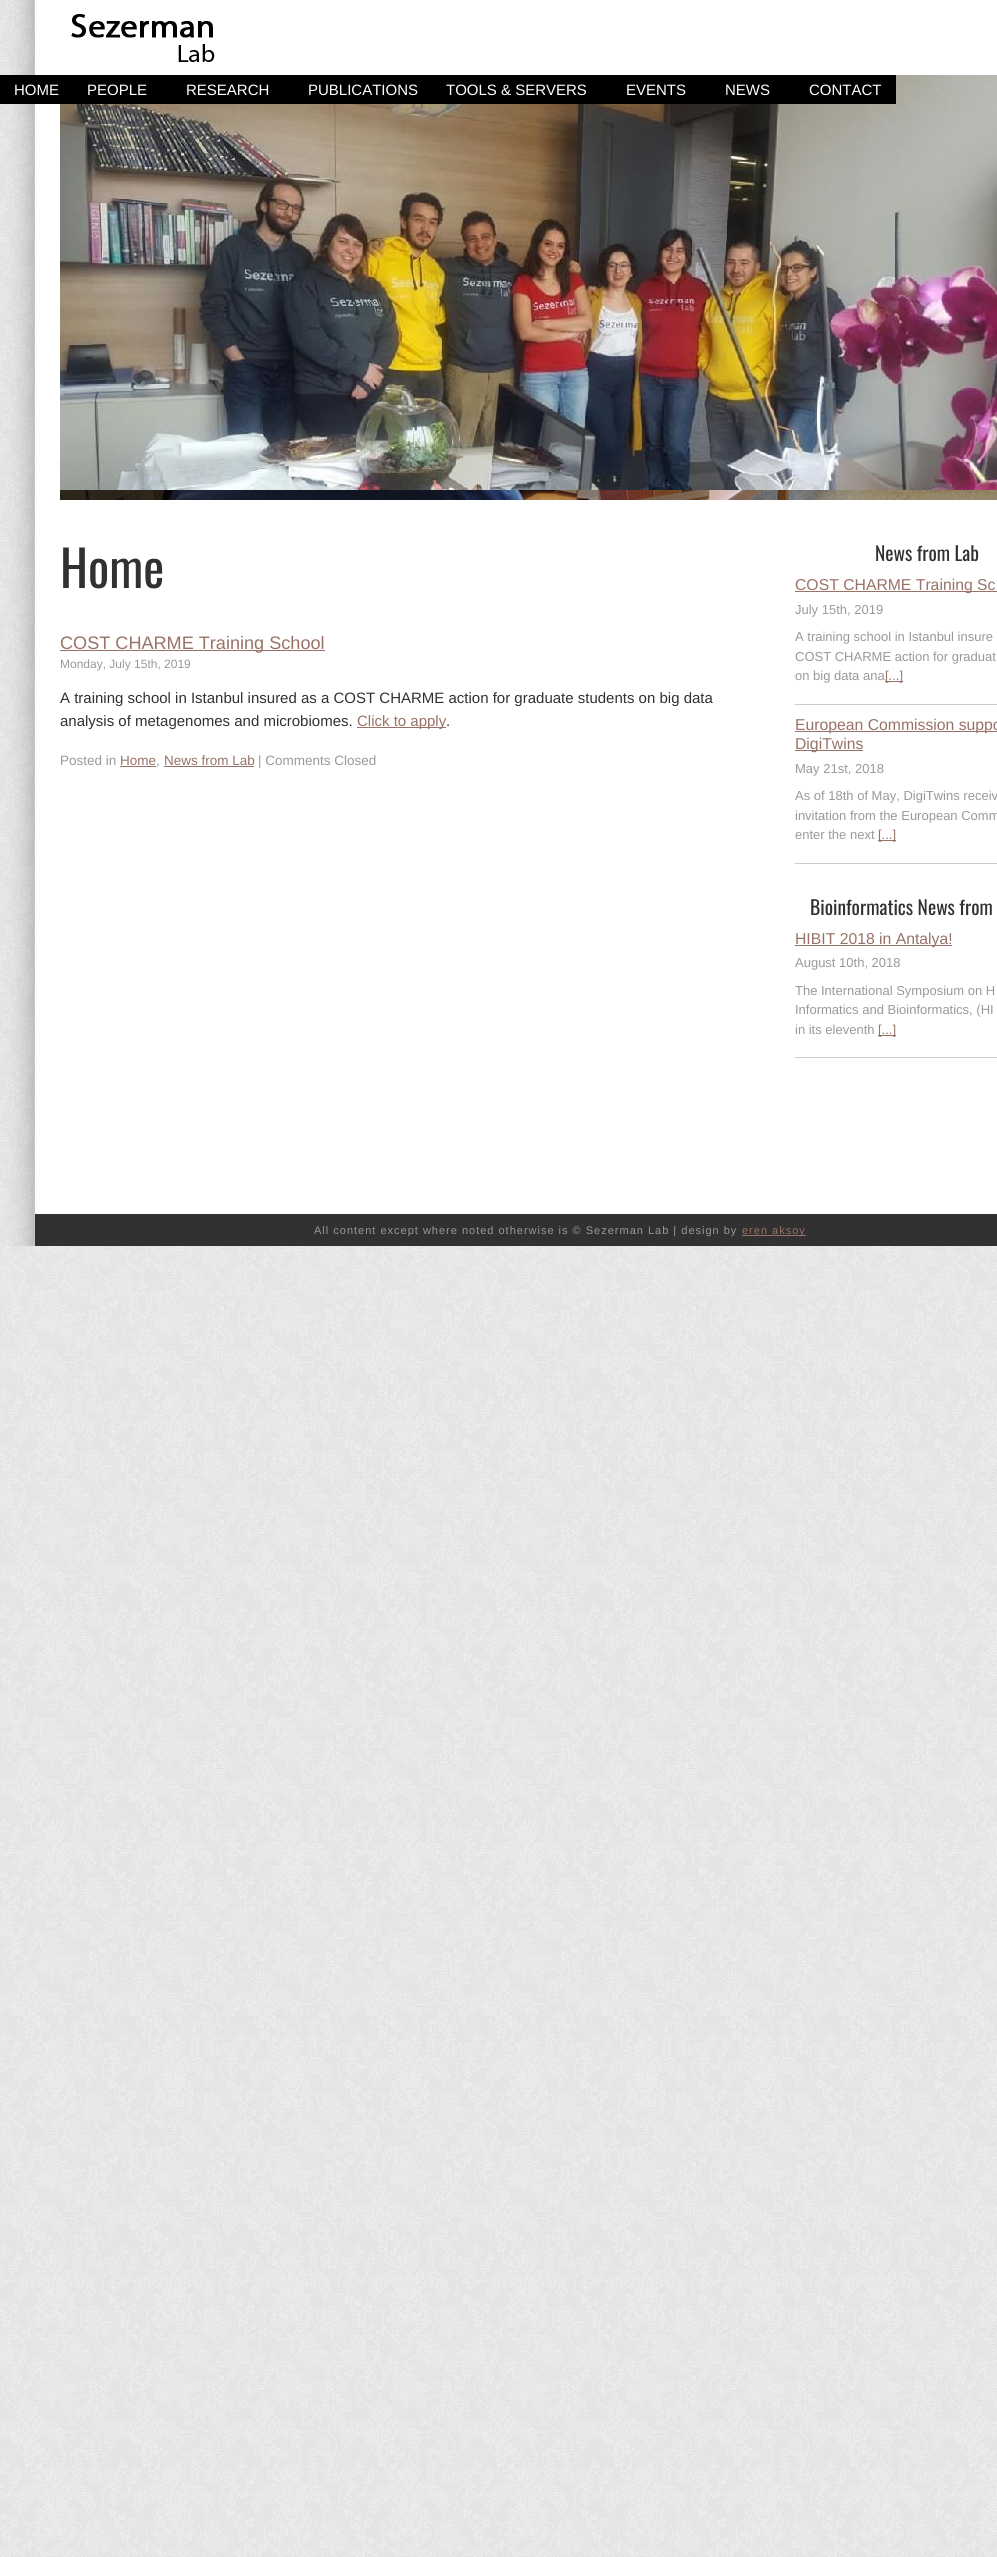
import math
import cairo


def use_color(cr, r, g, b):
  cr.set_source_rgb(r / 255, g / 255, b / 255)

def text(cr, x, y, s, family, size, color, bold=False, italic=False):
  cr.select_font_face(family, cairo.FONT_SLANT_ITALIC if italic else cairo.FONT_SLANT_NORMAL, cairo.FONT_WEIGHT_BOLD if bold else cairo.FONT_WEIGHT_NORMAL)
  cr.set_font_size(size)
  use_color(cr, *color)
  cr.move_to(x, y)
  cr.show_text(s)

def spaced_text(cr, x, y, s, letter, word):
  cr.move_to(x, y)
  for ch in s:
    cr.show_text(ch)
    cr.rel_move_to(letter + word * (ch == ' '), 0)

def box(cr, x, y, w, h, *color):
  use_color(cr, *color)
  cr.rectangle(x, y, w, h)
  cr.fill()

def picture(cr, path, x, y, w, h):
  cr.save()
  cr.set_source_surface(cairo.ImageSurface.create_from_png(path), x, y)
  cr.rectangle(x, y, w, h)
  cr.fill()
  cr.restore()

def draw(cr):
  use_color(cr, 255, 255, 255)
  cr.paint()
  picture(cr, "img_01.png", 0, 1246, 997, 1311)
  picture(cr, "img_02.png", 0, 0, 997, 1214)
  picture(cr, "img_03.png", 0, 0, 34, 75)
  picture(cr, "img_04.png", 71, 14, 144, 48)
  picture(cr, "img_05.png", 60, 490, 937, 10)
  picture(cr, "img_06.png", 60, 75, 937, 415)
  box(cr, 0, 75, 896, 29, 0, 0, 0)
  box(cr, 60, 650, 265, 1, 153, 114, 103)
  box(cr, 357, 727, 89, 1, 153, 114, 103)
  box(cr, 120, 766, 36, 1, 153, 114, 103)
  box(cr, 164, 766, 90, 1, 153, 114, 103)
  box(cr, 795, 704, 202, 1, 204, 204, 204)
  box(cr, 795, 591, 202, 1, 153, 114, 103)
  box(cr, 885, 681, 18, 1, 153, 114, 103)
  box(cr, 795, 863, 202, 1, 204, 204, 204)
  box(cr, 795, 731, 202, 1, 153, 114, 103)
  box(cr, 795, 750, 68, 1, 153, 114, 103)
  box(cr, 878, 840, 18, 1, 153, 114, 103)
  box(cr, 795, 1057, 202, 1, 204, 204, 204)
  box(cr, 795, 945, 157, 1, 153, 114, 103)
  box(cr, 878, 1035, 18, 1, 153, 114, 103)
  picture(cr, "img_07.png", 0, 1214, 997, 32)
  box(cr, 742, 1235, 64, 1, 153, 114, 103)
  text(cr, 14, 95, "HOME", "Liberation Sans", 15, (255, 255, 255))
  text(cr, 87, 95, "PEOPLE", "Liberation Sans", 15, (255, 255, 255))
  text(cr, 186, 95, "RESEARCH", "Liberation Sans", 15, (255, 255, 255))
  text(cr, 308, 95, "PUBLICATIONS", "Liberation Sans", 15, (255, 255, 255))
  text(cr, 446, 95, "TOOLS & SERVERS", "Liberation Sans", 15, (255, 255, 255))
  text(cr, 626, 95, "EVENTS", "Liberation Sans", 15, (255, 255, 255))
  text(cr, 725, 95, "NEWS", "Liberation Sans", 15, (255, 255, 255))
  text(cr, 809, 95, "CONTACT", "Liberation Sans", 15, (255, 255, 255))
  text(cr, 60, 588, "Home", "Oswald", 50, (49, 49, 49))
  text(cr, 60, 649, "COST CHARME Training School", "Liberation Sans", 18.1, (153, 114, 103))
  text(cr, 60, 668, "Monday, July 15th, 2019", "Liberation Sans", 12, (153, 153, 153))
  text(cr, 60, 703, "A training school in Istanbul insured as a COST CHARME action for graduate students on big data", "Liberation Sans", 15, (49, 49, 49))
  text(cr, 60, 726, "analysis of metagenomes and microbiomes.", "Liberation Sans", 15, (49, 49, 49))
  text(cr, 357, 726, "Click to apply", "Liberation Sans", 15, (153, 114, 103))
  text(cr, 446, 726, ".", "Liberation Sans", 15, (49, 49, 49))
  text(cr, 60, 765, "Posted in", "Liberation Sans", 13.5, (153, 153, 153))
  text(cr, 120, 765, "Home", "Liberation Sans", 13.5, (153, 114, 103))
  text(cr, 156, 765, ",", "Liberation Sans", 13.5, (153, 153, 153))
  text(cr, 164, 765, "News from Lab", "Liberation Sans", 13.5, (153, 114, 103))
  text(cr, 258, 765, "| Comments Closed", "Liberation Sans", 13.5, (153, 153, 153))
  text(cr, 875, 561, "News from Lab", "Oswald", 19.5, (49, 49, 49))
  text(cr, 795, 590, "COST CHARME Training Sc", "Liberation Sans", 15.75, (153, 114, 103))
  text(cr, 795, 614, "July 15th, 2019", "Liberation Sans", 13, (153, 153, 153))
  text(cr, 795, 641, "A training school in Istanbul insure", "Liberation Sans", 13, (153, 153, 153))
  text(cr, 795, 661, "COST CHARME action for graduat", "Liberation Sans", 13, (153, 153, 153))
  text(cr, 795, 680, "on big data ana", "Liberation Sans", 13, (153, 153, 153))
  text(cr, 885, 680, "[...]", "Liberation Sans", 13, (153, 114, 103))
  text(cr, 795, 730, "European Commission suppo", "Liberation Sans", 15.75, (153, 114, 103))
  text(cr, 795, 749, "DigiTwins", "Liberation Sans", 15.75, (153, 114, 103))
  text(cr, 795, 773, "May 21st, 2018", "Liberation Sans", 13, (153, 153, 153))
  text(cr, 795, 800, "As of 18th of May, DigiTwins receiv", "Liberation Sans", 13, (153, 153, 153))
  text(cr, 795, 820, "invitation from the European Comm", "Liberation Sans", 13, (153, 153, 153))
  text(cr, 795, 839, "enter the next", "Liberation Sans", 13, (153, 153, 153))
  text(cr, 878, 839, "[...]", "Liberation Sans", 13, (153, 114, 103))
  text(cr, 810, 915, "Bioinformatics News from", "Oswald", 19.5, (49, 49, 49))
  text(cr, 795, 944, "HIBIT 2018 in Antalya!", "Liberation Sans", 15.75, (153, 114, 103))
  text(cr, 795, 967, "August 10th, 2018", "Liberation Sans", 13, (153, 153, 153))
  text(cr, 795, 995, "The International Symposium on H", "Liberation Sans", 13, (153, 153, 153))
  text(cr, 795, 1014, "Informatics and Bioinformatics, (HI", "Liberation Sans", 13, (153, 153, 153))
  text(cr, 795, 1034, "in its eleventh", "Liberation Sans", 13, (153, 153, 153))
  text(cr, 878, 1034, "[...]", "Liberation Sans", 13, (153, 114, 103))
  cr.set_font_size(11)
  use_color(cr, 153, 153, 153)
  spaced_text(cr, 314, 1234, "All content except where noted otherwise is © Sezerman Lab | design by", 1, 0)
  use_color(cr, 153, 114, 103)
  spaced_text(cr, 742, 1234, "eren aksoy", 1, 0)


surface = cairo.ImageSurface(cairo.FORMAT_RGB24, 997, 2557)
cr = cairo.Context(surface)
options = cairo.FontOptions()
options.set_hint_metrics(cairo.HINT_METRICS_OFF)
options.set_hint_style(cairo.HINT_STYLE_NONE)
cr.set_font_options(options)
cr.set_miter_limit(4)
draw(cr)
surface.write_to_png("out.png")
